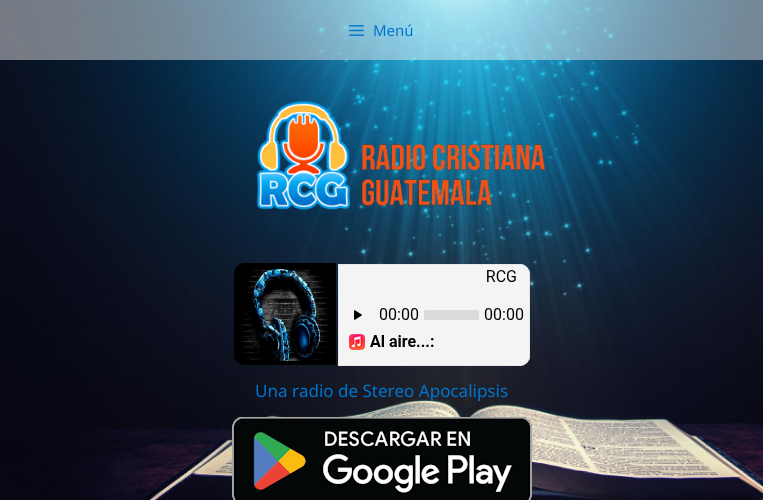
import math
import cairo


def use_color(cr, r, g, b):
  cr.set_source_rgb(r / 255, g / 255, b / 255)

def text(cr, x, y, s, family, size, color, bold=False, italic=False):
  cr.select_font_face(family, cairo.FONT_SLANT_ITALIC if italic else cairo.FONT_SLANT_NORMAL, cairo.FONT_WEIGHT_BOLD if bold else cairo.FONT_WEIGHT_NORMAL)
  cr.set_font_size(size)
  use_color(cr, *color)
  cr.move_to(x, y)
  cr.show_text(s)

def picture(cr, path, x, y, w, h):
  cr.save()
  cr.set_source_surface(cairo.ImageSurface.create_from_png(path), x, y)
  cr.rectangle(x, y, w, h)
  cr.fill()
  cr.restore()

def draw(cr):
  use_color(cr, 255, 255, 255)
  cr.paint()
  picture(cr, "img_01.png", 0, 0, 763, 500)
  cr.set_source_rgba(0.941, 0.941, 0.941, 0.47)
  cr.rectangle(0, 0, 763, 60)
  cr.fill()
  picture(cr, "img_02.png", 349, 25, 15, 11)
  picture(cr, "img_03.png", 256, 101, 290, 109)
  picture(cr, "img_04.png", 234, 263, 296, 103)
  picture(cr, "img_05.png", 232, 417, 300, 83)
  text(cr, 373, 36, "Menú", "Noto Sans", 15, (0, 117, 208))
  text(cr, 255, 397, "Una radio de Stereo Apocalipsis", "Noto Sans", 17, (0, 117, 208))


surface = cairo.ImageSurface(cairo.FORMAT_RGB24, 763, 500)
cr = cairo.Context(surface)
options = cairo.FontOptions()
options.set_hint_metrics(cairo.HINT_METRICS_OFF)
options.set_hint_style(cairo.HINT_STYLE_NONE)
cr.set_font_options(options)
cr.set_miter_limit(4)
draw(cr)
surface.write_to_png("out.png")
